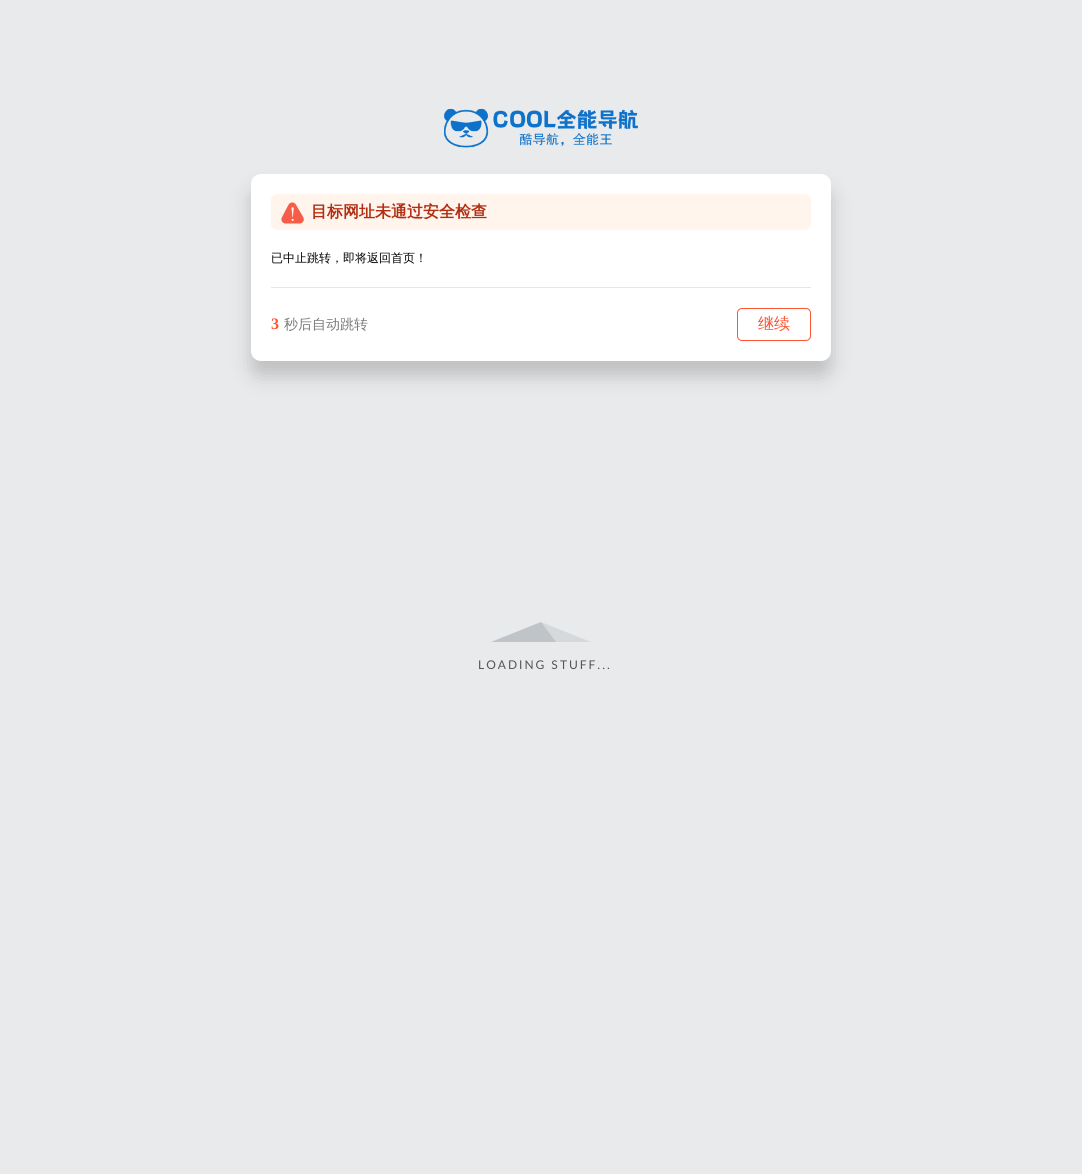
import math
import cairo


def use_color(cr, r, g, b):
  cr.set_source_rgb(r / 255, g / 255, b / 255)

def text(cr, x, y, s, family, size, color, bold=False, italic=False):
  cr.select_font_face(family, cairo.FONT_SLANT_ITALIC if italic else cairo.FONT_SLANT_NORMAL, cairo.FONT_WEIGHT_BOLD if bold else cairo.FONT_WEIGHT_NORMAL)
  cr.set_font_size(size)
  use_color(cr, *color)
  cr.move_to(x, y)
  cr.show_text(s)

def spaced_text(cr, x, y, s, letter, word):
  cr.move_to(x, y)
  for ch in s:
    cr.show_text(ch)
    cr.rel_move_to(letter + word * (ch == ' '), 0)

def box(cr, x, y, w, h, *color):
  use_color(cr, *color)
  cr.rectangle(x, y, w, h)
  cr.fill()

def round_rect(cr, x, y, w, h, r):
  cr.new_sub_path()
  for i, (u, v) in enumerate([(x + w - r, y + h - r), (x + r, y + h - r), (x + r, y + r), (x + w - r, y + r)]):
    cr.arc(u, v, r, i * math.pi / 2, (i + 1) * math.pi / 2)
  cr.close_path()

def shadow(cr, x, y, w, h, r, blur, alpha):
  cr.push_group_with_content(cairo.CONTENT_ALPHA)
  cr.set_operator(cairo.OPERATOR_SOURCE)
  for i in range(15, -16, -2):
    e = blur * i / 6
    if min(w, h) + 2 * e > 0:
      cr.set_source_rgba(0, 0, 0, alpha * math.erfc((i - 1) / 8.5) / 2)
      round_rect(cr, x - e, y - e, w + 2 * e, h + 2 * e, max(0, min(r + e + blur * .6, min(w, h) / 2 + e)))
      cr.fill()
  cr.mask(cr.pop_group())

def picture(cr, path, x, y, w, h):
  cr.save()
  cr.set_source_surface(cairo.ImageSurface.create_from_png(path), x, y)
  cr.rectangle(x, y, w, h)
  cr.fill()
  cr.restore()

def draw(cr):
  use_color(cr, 232, 234, 236)
  cr.paint()
  picture(cr, "img_01.png", 444, 108, 194, 40)
  use_color(cr, 18, 19, 20)
  shadow(cr, 251, 189, 580, 187, 10, 10, 0.2)
  use_color(cr, 255, 255, 255)
  round_rect(cr, 251, 174, 580, 187, 10)
  cr.fill()
  use_color(cr, 255, 245, 237)
  round_rect(cr, 271, 194, 540, 36, 6)
  cr.fill()
  picture(cr, "img_02.png", 281, 202, 23, 22)
  box(cr, 271, 287, 540, 1, 231, 231, 231)
  round_rect(cr, 737.5, 308.5, 73, 32, 4.5)
  use_color(cr, 252, 85, 49)
  cr.set_line_width(1)
  cr.stroke()
  use_color(cr, 213, 217, 220)
  cr.new_path()
  cr.move_to(591, 642)
  cr.line_to(491, 642)
  cr.line_to(541, 622)
  cr.close_path()
  cr.fill()
  cr.set_source_rgba(0.4, 0.447, 0.475, 0.2)
  cr.new_path()
  cr.move_to(556, 642)
  cr.line_to(491, 642)
  cr.line_to(541, 622)
  cr.close_path()
  cr.fill()
  text(cr, 311, 217, "目标网址未通过安全检查", "WenQuanYi Zen Hei", 16, (178, 46, 18), bold=True)
  text(cr, 271, 262, "已中止跳转，即将返回首页！", "WenQuanYi Zen Hei Medium", 12, (0, 0, 0))
  text(cr, 271, 329, "3", "Liberation Serif", 16, (252, 85, 49), bold=True)
  text(cr, 284, 329, "秒后自动跳转", "WenQuanYi Zen Hei Medium", 14, (120, 122, 125))
  text(cr, 758, 329, "继续", "WenQuanYi Zen Hei Medium", 16, (252, 85, 49))
  cr.select_font_face("Lato")
  cr.set_font_size(12)
  use_color(cr, 85, 85, 85)
  spaced_text(cr, 478, 669, "LOADING STUFF...", 2, 0)


surface = cairo.ImageSurface(cairo.FORMAT_RGB24, 1082, 1174)
cr = cairo.Context(surface)
options = cairo.FontOptions()
options.set_hint_metrics(cairo.HINT_METRICS_OFF)
options.set_hint_style(cairo.HINT_STYLE_NONE)
cr.set_font_options(options)
cr.set_miter_limit(4)
draw(cr)
surface.write_to_png("out.png")
